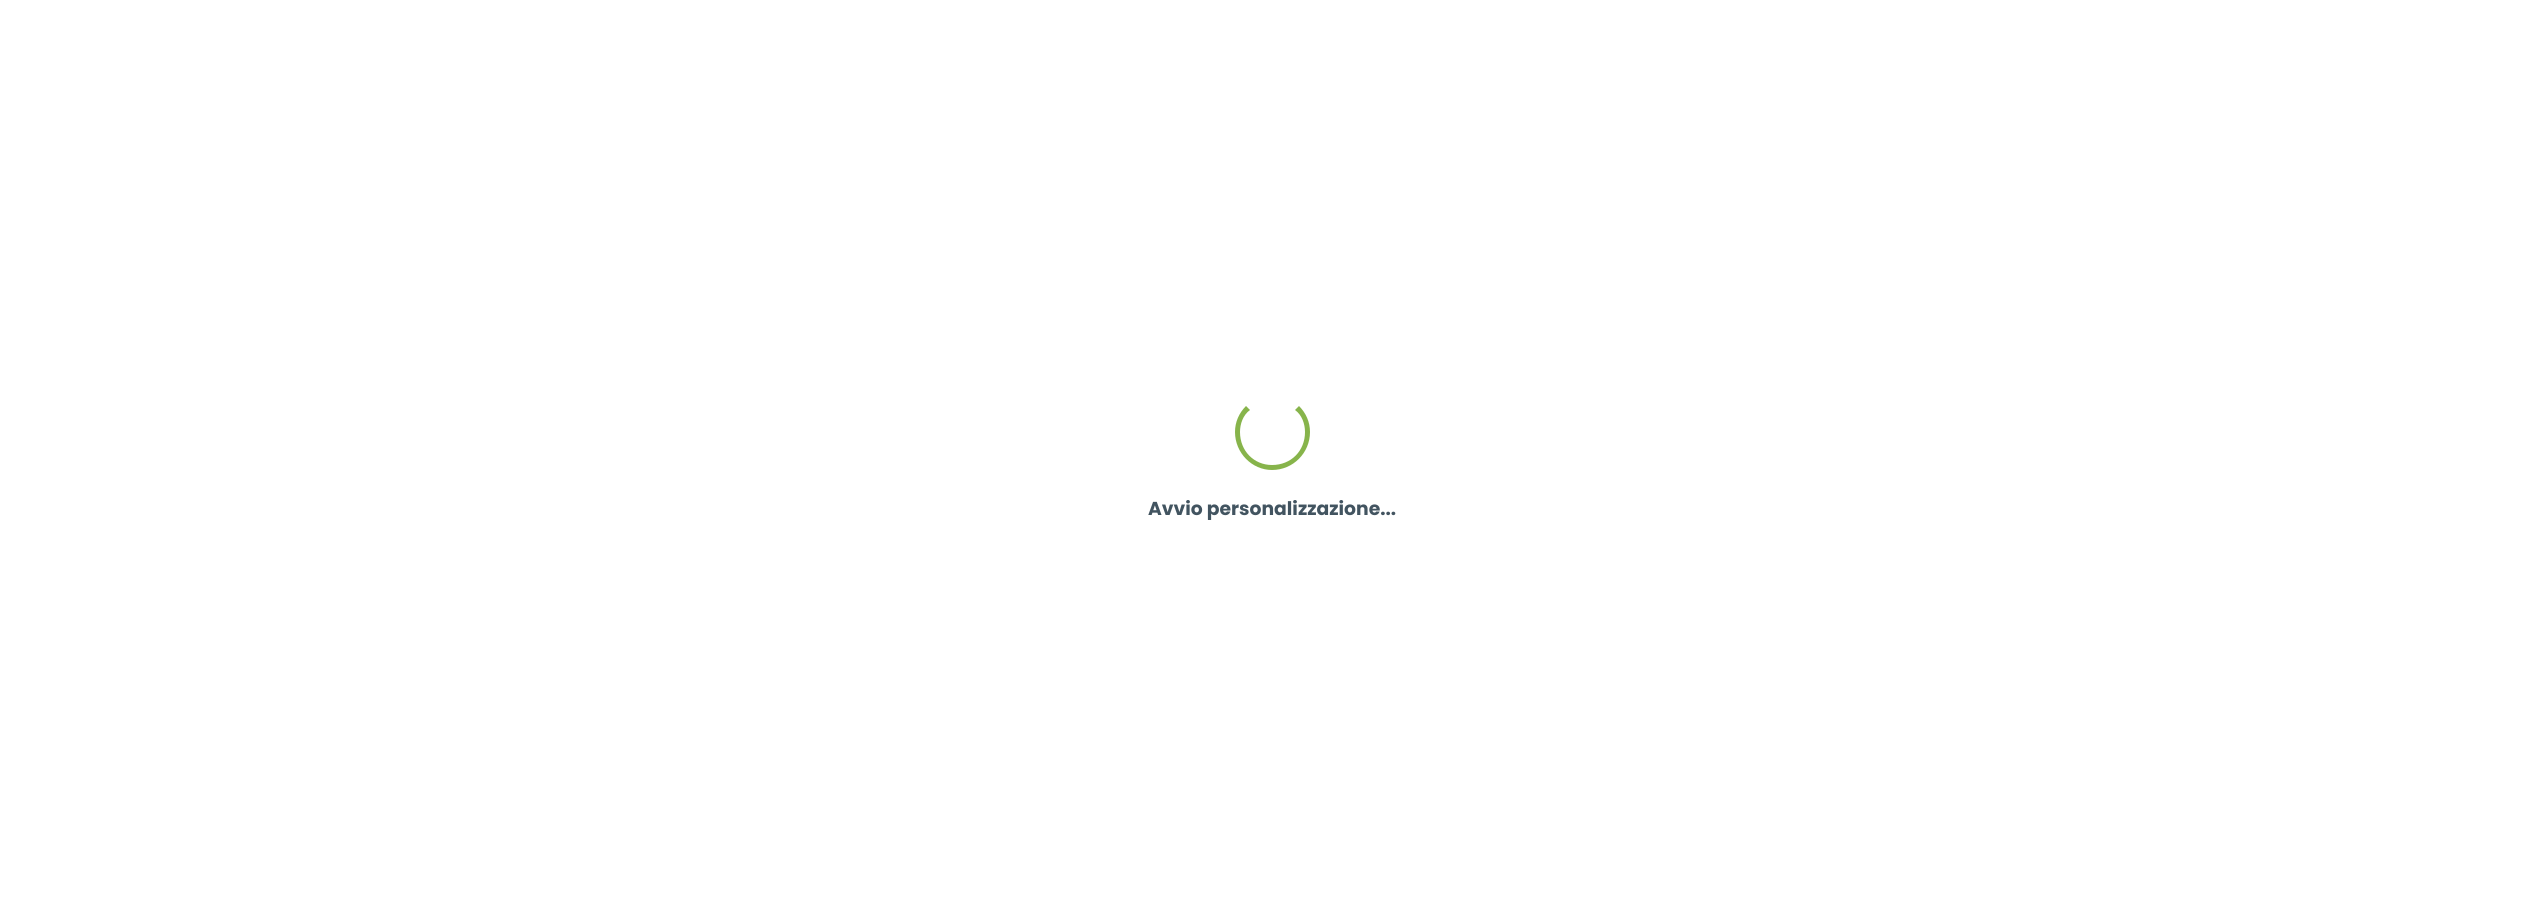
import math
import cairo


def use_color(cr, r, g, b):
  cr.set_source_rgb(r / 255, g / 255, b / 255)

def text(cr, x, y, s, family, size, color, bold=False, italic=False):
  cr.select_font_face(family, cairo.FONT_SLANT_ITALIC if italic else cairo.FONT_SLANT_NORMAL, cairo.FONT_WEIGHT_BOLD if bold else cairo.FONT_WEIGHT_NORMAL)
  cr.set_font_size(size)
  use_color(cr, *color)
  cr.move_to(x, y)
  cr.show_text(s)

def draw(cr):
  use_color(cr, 255, 255, 255)
  cr.paint()
  use_color(cr, 135, 180, 75)
  cr.new_path()
  cr.move_to(1295, 410)
  cr.curve_to(1302, 415, 1305, 424, 1305, 432)
  cr.curve_to(1305, 451, 1291, 465, 1272, 465)
  cr.curve_to(1254, 465, 1240, 451, 1240, 432)
  cr.curve_to(1240, 424, 1243, 415, 1250, 410)
  cr.line_to(1246, 406)
  cr.curve_to(1239, 413, 1235, 422, 1235, 432)
  cr.curve_to(1235, 453, 1252, 470, 1272, 470)
  cr.curve_to(1293, 470, 1310, 453, 1310, 432)
  cr.curve_to(1310, 422, 1306, 413, 1299, 406)
  cr.close_path()
  cr.fill()
  text(cr, 1148, 515, "Avvio personalizzazione...", "Poppins", 18.75, (66, 84, 96), bold=True)


surface = cairo.ImageSurface(cairo.FORMAT_RGB24, 2544, 918)
cr = cairo.Context(surface)
options = cairo.FontOptions()
options.set_hint_metrics(cairo.HINT_METRICS_OFF)
options.set_hint_style(cairo.HINT_STYLE_NONE)
cr.set_font_options(options)
cr.set_miter_limit(4)
draw(cr)
surface.write_to_png("out.png")
